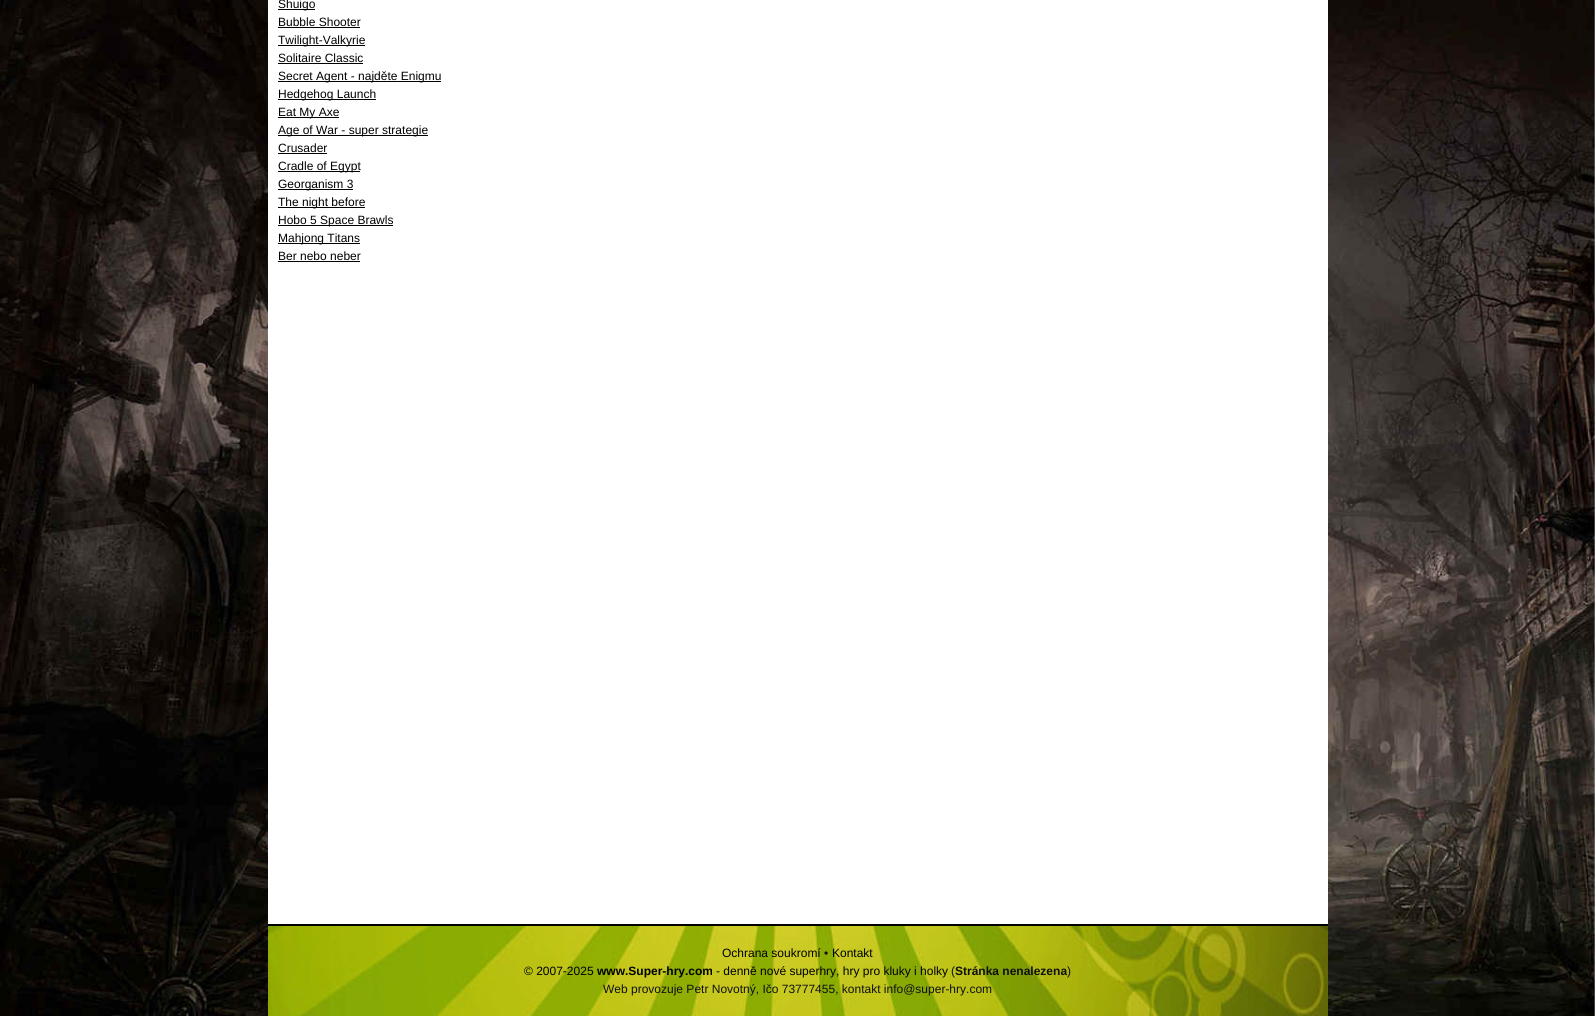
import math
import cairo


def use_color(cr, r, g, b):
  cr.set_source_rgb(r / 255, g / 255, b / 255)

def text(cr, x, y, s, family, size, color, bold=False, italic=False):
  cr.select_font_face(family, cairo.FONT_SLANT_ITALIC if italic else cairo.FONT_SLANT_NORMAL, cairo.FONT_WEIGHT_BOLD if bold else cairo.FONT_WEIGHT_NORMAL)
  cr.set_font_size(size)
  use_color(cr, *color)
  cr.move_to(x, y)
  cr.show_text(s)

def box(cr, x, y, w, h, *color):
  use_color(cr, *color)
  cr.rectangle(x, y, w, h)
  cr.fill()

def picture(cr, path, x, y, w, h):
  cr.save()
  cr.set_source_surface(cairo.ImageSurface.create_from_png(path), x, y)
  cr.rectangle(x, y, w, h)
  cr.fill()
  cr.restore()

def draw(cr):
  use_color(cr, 255, 255, 255)
  cr.paint()
  picture(cr, "img_01.png", 0, 0, 1595, 1016)
  box(cr, 268, 0, 1060, 924, 255, 255, 255)
  box(cr, 278, 9, 37, 1, 0, 0, 0)
  box(cr, 278, 27, 82, 1, 0, 0, 0)
  box(cr, 278, 45, 87, 1, 0, 0, 0)
  box(cr, 278, 63, 85, 1, 0, 0, 0)
  box(cr, 278, 81, 163, 1, 0, 0, 0)
  box(cr, 278, 99, 98, 1, 0, 0, 0)
  box(cr, 278, 117, 61, 1, 0, 0, 0)
  box(cr, 278, 135, 150, 1, 0, 0, 0)
  box(cr, 278, 153, 49, 1, 0, 0, 0)
  box(cr, 278, 171, 82, 1, 0, 0, 0)
  box(cr, 278, 189, 75, 1, 0, 0, 0)
  box(cr, 278, 207, 87, 1, 0, 0, 0)
  box(cr, 278, 225, 115, 1, 0, 0, 0)
  box(cr, 278, 243, 82, 1, 0, 0, 0)
  box(cr, 278, 261, 82, 1, 0, 0, 0)
  picture(cr, "img_02.png", 268, 926, 1060, 90)
  box(cr, 268, 924, 1060, 2, 0, 0, 0)
  text(cr, 278, 8, "Shuigo", "Liberation Sans", 12, (0, 0, 0))
  text(cr, 278, 26, "Bubble Shooter", "Liberation Sans", 12, (0, 0, 0))
  text(cr, 278, 44, "Twilight-Valkyrie", "Liberation Sans", 12, (0, 0, 0))
  text(cr, 278, 62, "Solitaire Classic", "Liberation Sans", 12, (0, 0, 0))
  text(cr, 278, 80, "Secret Agent - najděte Enigmu", "Liberation Sans", 12, (0, 0, 0))
  text(cr, 278, 98, "Hedgehog Launch", "Liberation Sans", 12, (0, 0, 0))
  text(cr, 278, 116, "Eat My Axe", "Liberation Sans", 12, (0, 0, 0))
  text(cr, 278, 134, "Age of War - super strategie", "Liberation Sans", 12, (0, 0, 0))
  text(cr, 278, 152, "Crusader", "Liberation Sans", 12, (0, 0, 0))
  text(cr, 278, 170, "Cradle of Egypt", "Liberation Sans", 12, (0, 0, 0))
  text(cr, 278, 188, "Georganism 3", "Liberation Sans", 12, (0, 0, 0))
  text(cr, 278, 206, "The night before", "Liberation Sans", 12, (0, 0, 0))
  text(cr, 278, 224, "Hobo 5 Space Brawls", "Liberation Sans", 12, (0, 0, 0))
  text(cr, 278, 242, "Mahjong Titans", "Liberation Sans", 12, (0, 0, 0))
  text(cr, 278, 260, "Ber nebo neber", "Liberation Sans", 12, (0, 0, 0))
  text(cr, 722, 957, "Ochrana soukromí", "Liberation Sans", 12, (0, 0, 0))
  text(cr, 824, 957, "•", "Liberation Sans", 12, (15, 15, 15))
  text(cr, 832, 957, "Kontakt", "Liberation Sans", 12, (0, 0, 0))
  text(cr, 524, 975, "© 2007-2025", "Liberation Sans", 12, (0, 0, 0))
  text(cr, 597, 975, "www.Super-hry.com", "Liberation Sans", 12, (0, 0, 0), bold=True)
  text(cr, 716, 975, "- denně nové superhry, hry pro kluky i holky", "Liberation Sans", 12, (0, 0, 0))
  text(cr, 951, 975, "(", "Liberation Sans", 12, (15, 15, 15))
  text(cr, 955, 975, "Stránka nenalezena", "Liberation Sans", 12, (15, 15, 15), bold=True)
  text(cr, 1067, 975, ")", "Liberation Sans", 12, (15, 15, 15))
  text(cr, 603, 993, "Web provozuje Petr Novotný, Ičo 73777455, kontakt info@super-hry.com", "Liberation Sans", 12, (15, 15, 15))


surface = cairo.ImageSurface(cairo.FORMAT_RGB24, 1595, 1016)
cr = cairo.Context(surface)
options = cairo.FontOptions()
options.set_hint_metrics(cairo.HINT_METRICS_OFF)
options.set_hint_style(cairo.HINT_STYLE_NONE)
cr.set_font_options(options)
cr.set_miter_limit(4)
draw(cr)
surface.write_to_png("out.png")
